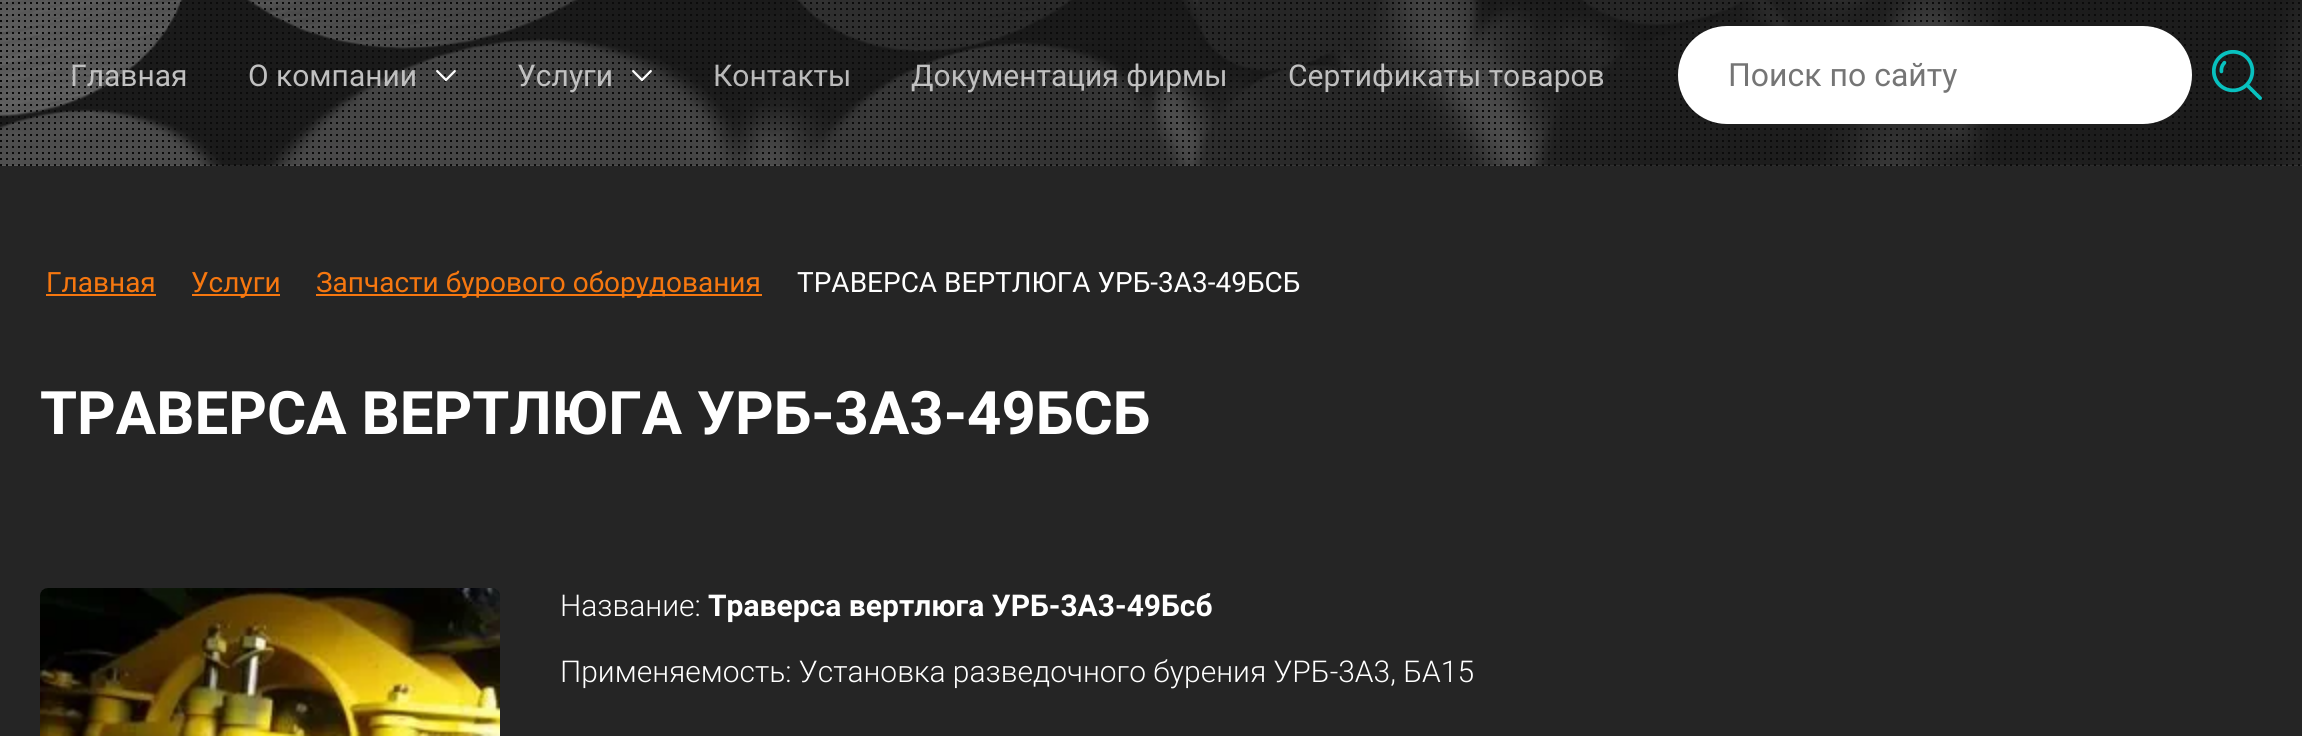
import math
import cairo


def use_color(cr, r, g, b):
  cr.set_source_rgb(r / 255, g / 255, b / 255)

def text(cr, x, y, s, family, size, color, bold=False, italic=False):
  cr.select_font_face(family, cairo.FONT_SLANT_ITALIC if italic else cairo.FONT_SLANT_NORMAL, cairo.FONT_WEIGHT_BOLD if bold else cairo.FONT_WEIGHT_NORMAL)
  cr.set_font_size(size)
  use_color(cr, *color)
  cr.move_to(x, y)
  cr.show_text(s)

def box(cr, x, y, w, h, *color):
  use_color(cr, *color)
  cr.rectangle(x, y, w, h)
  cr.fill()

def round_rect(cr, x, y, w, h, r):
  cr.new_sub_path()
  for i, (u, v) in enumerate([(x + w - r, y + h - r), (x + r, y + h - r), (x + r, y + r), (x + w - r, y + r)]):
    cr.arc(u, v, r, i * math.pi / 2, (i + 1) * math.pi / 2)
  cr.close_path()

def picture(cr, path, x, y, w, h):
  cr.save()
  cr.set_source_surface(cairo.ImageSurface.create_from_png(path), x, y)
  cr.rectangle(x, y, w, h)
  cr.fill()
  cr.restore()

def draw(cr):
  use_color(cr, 255, 255, 255)
  cr.paint()
  picture(cr, "img_01.png", 0, 0, 2302, 166)
  picture(cr, "img_02.png", 0, 2, 2300, 164)
  picture(cr, "img_03.png", 436, 70, 20, 12)
  picture(cr, "img_04.png", 632, 70, 20, 12)
  use_color(cr, 255, 255, 255)
  round_rect(cr, 1678, 26, 514, 98, 49)
  cr.fill()
  picture(cr, "img_05.png", 2212, 50, 50, 50)
  box(cr, 0, 166, 2302, 570, 37, 37, 37)
  box(cr, 46, 294, 110, 2, 246, 119, 15)
  box(cr, 192, 294, 88, 2, 246, 119, 15)
  box(cr, 316, 294, 446, 2, 246, 119, 15)
  picture(cr, "img_06.png", 40, 588, 460, 148)
  text(cr, 70, 86, "Главная", "Roboto", 30, (192, 192, 192))
  text(cr, 248, 86, "О компании", "Roboto", 30, (192, 192, 192))
  text(cr, 517, 86, "Услуги", "Roboto", 30, (192, 192, 192))
  text(cr, 713, 86, "Контакты", "Roboto", 30, (186, 186, 186))
  text(cr, 911, 86, "Документация фирмы", "Roboto", 30, (192, 192, 192))
  text(cr, 1288, 86, "Сертификаты товаров", "Roboto", 30, (192, 192, 192))
  text(cr, 1728, 86, "Поиск по сайту", "Roboto", 32, (117, 117, 117))
  text(cr, 46, 292, "Главная", "Roboto", 28, (246, 119, 15))
  text(cr, 191, 292, "Услуги", "Roboto", 28, (246, 119, 15))
  text(cr, 316, 292, "Запчасти бурового оборудования", "Roboto", 28, (246, 119, 15))
  text(cr, 797, 292, "ТРАВЕРСА ВЕРТЛЮГА УРБ-3А3-49БСБ", "Roboto", 28, (255, 255, 255))
  text(cr, 40, 434, "ТРАВЕРСА ВЕРТЛЮГА УРБ-3А3-49БСБ", "Roboto", 60, (255, 255, 255), bold=True)
  text(cr, 560, 616, "Название:", "Roboto Light", 30, (255, 255, 255))
  text(cr, 708, 616, "Траверса вертлюга УРБ-3А3-49Бсб", "Roboto", 30, (255, 255, 255), bold=True)
  text(cr, 560, 682, "Применяемость: Установка разведочного бурения УРБ-3А3, БА15", "Roboto Light", 30, (255, 255, 255))


surface = cairo.ImageSurface(cairo.FORMAT_RGB24, 2302, 736)
cr = cairo.Context(surface)
options = cairo.FontOptions()
options.set_hint_metrics(cairo.HINT_METRICS_OFF)
options.set_hint_style(cairo.HINT_STYLE_NONE)
cr.set_font_options(options)
cr.set_miter_limit(4)
draw(cr)
surface.write_to_png("out.png")
